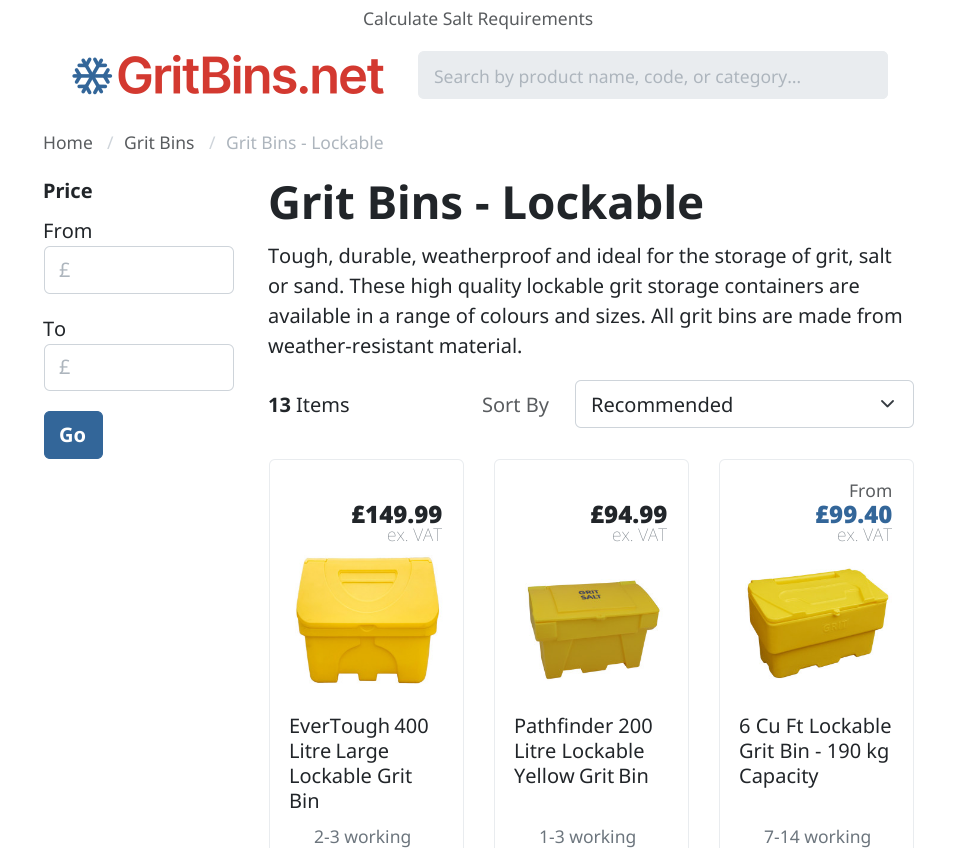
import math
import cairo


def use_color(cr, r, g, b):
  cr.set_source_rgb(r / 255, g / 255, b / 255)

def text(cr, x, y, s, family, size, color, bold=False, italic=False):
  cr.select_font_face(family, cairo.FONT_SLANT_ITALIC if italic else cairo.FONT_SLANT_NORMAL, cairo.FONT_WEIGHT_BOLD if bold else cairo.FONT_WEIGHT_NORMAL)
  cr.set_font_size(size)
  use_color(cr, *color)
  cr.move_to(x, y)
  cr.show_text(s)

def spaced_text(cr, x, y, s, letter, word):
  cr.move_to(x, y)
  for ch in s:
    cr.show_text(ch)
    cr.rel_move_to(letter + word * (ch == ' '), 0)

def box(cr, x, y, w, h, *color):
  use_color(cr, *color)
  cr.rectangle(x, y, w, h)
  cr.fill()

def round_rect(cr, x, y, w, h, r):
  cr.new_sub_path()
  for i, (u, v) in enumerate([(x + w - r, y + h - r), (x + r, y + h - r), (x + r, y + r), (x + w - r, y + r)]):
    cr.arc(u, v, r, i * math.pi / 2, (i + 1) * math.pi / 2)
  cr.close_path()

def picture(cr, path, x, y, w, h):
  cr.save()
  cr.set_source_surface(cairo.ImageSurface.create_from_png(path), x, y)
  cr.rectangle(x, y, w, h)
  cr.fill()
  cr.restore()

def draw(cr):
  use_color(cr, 255, 255, 255)
  cr.paint()
  picture(cr, "img_01.png", 72, 54, 312, 41)
  use_color(cr, 233, 236, 239)
  round_rect(cr, 418.5, 51.5, 469, 47, 5.5)
  cr.fill_preserve()
  cr.set_line_width(1)
  cr.stroke()
  cr.save()
  cr.new_path()
  cr.move_to(840, 51)
  cr.line_to(882, 51)
  cr.curve_to(885.5, 51, 888, 53.5, 888, 57)
  cr.line_to(888, 93)
  cr.curve_to(888, 96.5, 885.5, 99, 882, 99)
  cr.line_to(840, 99)
  cr.close_path()
  cr.clip()
  box(cr, 841, 51, 45, 48, 233, 236, 239)
  box(cr, 886, 51, 2, 48, 233, 236, 239)
  cr.restore()
  round_rect(cr, 44.5, 246.5, 189, 47, 5.5)
  use_color(cr, 206, 212, 218)
  cr.stroke()
  round_rect(cr, 44.5, 344.5, 189, 46, 5.5)
  cr.stroke()
  use_color(cr, 51, 102, 153)
  round_rect(cr, 44.5, 411.5, 58, 47, 5.5)
  cr.fill_preserve()
  cr.stroke()
  cr.new_path()
  cr.move_to(882, 401)
  cr.line_to(887.5, 406.5)
  cr.line_to(893, 401)
  use_color(cr, 52, 58, 64)
  cr.set_line_width(1.9)
  cr.set_line_cap(cairo.LINE_CAP_ROUND)
  cr.set_line_join(cairo.LINE_JOIN_ROUND)
  cr.stroke()
  round_rect(cr, 575.5, 380.5, 338, 47, 5.5)
  use_color(cr, 206, 212, 218)
  cr.set_line_width(1)
  cr.set_line_cap(cairo.LINE_CAP_BUTT)
  cr.set_line_join(cairo.LINE_JOIN_MITER)
  cr.stroke()
  round_rect(cr, 269.5, 459.5, 194, 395, 5.5)
  use_color(cr, 233, 236, 239)
  cr.stroke()
  picture(cr, "img_02.png", 295, 555, 148, 129)
  round_rect(cr, 494.5, 459.5, 194, 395, 5.5)
  cr.stroke()
  picture(cr, "img_03.png", 525, 579, 138, 102)
  round_rect(cr, 719.5, 459.5, 194, 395, 5.5)
  cr.stroke()
  picture(cr, "img_04.png", 745, 566, 147, 113)
  text(cr, 363, 25, "Calculate Salt Requirements", "Noto Sans", 17.5, (89, 92, 95))
  text(cr, 434, 83, "Search by product name, code, or category…", "Noto Sans", 17.5, (173, 181, 189))
  text(cr, 43, 149, "Home", "Noto Sans", 17.5, (89, 92, 95))
  text(cr, 107, 149, "/", "Noto Sans", 17.5, (206, 212, 218))
  text(cr, 124, 149, "Grit Bins", "Noto Sans", 17.5, (89, 92, 95))
  text(cr, 209, 149, "/", "Noto Sans", 17.5, (206, 212, 218))
  text(cr, 226, 149, "Grit Bins - Lockable", "Noto Sans", 17.5, (173, 181, 189))
  text(cr, 43, 198, "Price", "Noto Sans", 20, (33, 37, 41), bold=True)
  text(cr, 43, 238, "From", "Noto Sans", 20, (33, 37, 41))
  text(cr, 59, 277, "£", "Noto Sans", 20, (173, 181, 189))
  text(cr, 43, 336, "To", "Noto Sans", 20, (33, 37, 41))
  text(cr, 59, 374, "£", "Noto Sans", 20, (173, 181, 189))
  text(cr, 59, 442, "Go", "Noto Sans", 20, (255, 255, 255), bold=True)
  text(cr, 268, 219, "Grit Bins - Lockable", "Noto Sans", 45.6, (33, 37, 41), bold=True)
  cr.select_font_face("Noto Sans")
  cr.set_font_size(20)
  spaced_text(cr, 268, 263, "Tough, durable, weatherproof and ideal for the storage of grit, salt", 0, -0.25)
  text(cr, 268, 293, "or sand. These high quality lockable grit storage containers are", "Noto Sans", 20, (33, 37, 41))
  text(cr, 268, 323, "available in a range of colours and sizes. All grit bins are made from", "Noto Sans", 20, (33, 37, 41))
  text(cr, 268, 353, "weather-resistant material.", "Noto Sans", 20, (33, 37, 41))
  text(cr, 268, 412, "13", "Noto Sans", 20, (33, 37, 41), bold=True)
  text(cr, 296, 412, "Items", "Noto Sans", 20, (33, 37, 41))
  text(cr, 482, 412, "Sort By", "Noto Sans", 20, (89, 92, 95))
  text(cr, 591, 412, "Recommended", "Noto Sans", 20, (33, 37, 41))
  text(cr, 351, 523, "£149.99", "Noto Sans Black", 24, (33, 37, 41))
  text(cr, 387, 541, "ex. VAT", "Noto Sans Thin", 17.5, (108, 117, 125))
  cr.select_font_face("Noto Sans")
  cr.set_font_size(20)
  use_color(cr, 33, 37, 41)
  spaced_text(cr, 289, 733, "EverTough 400", 0, -1)
  spaced_text(cr, 289, 758, "Litre Large", 0, -1)
  text(cr, 289, 783, "Lockable Grit", "Noto Sans", 20, (33, 37, 41))
  text(cr, 289, 808, "Bin", "Noto Sans", 20, (33, 37, 41))
  text(cr, 314, 843, "2-3 working", "Noto Sans", 17.5, (108, 117, 125))
  text(cr, 590, 523, "£94.99", "Noto Sans Black", 24, (33, 37, 41))
  text(cr, 612, 541, "ex. VAT", "Noto Sans Thin", 17.5, (108, 117, 125))
  text(cr, 514, 733, "Pathfinder 200", "Noto Sans", 20, (33, 37, 41))
  text(cr, 514, 758, "Litre Lockable", "Noto Sans", 20, (33, 37, 41))
  spaced_text(cr, 514, 783, "Yellow Grit Bin", 0, -1)
  text(cr, 539, 843, "1-3 working", "Noto Sans", 17.5, (108, 117, 125))
  text(cr, 849, 497, "From", "Noto Sans", 17.5, (89, 92, 95))
  text(cr, 815, 523, "£99.40", "Noto Sans Black", 24, (51, 102, 153))
  text(cr, 837, 541, "ex. VAT", "Noto Sans Thin", 17.5, (108, 117, 125))
  text(cr, 739, 733, "6 Cu Ft Lockable", "Noto Sans", 20, (33, 37, 41))
  text(cr, 739, 758, "Grit Bin - 190 kg", "Noto Sans", 20, (33, 37, 41))
  text(cr, 739, 783, "Capacity", "Noto Sans", 20, (33, 37, 41))
  text(cr, 764, 843, "7-14 working", "Noto Sans", 17.5, (108, 117, 125))


surface = cairo.ImageSurface(cairo.FORMAT_RGB24, 975, 848)
cr = cairo.Context(surface)
options = cairo.FontOptions()
options.set_hint_metrics(cairo.HINT_METRICS_OFF)
options.set_hint_style(cairo.HINT_STYLE_NONE)
cr.set_font_options(options)
cr.set_miter_limit(4)
draw(cr)
surface.write_to_png("out.png")
